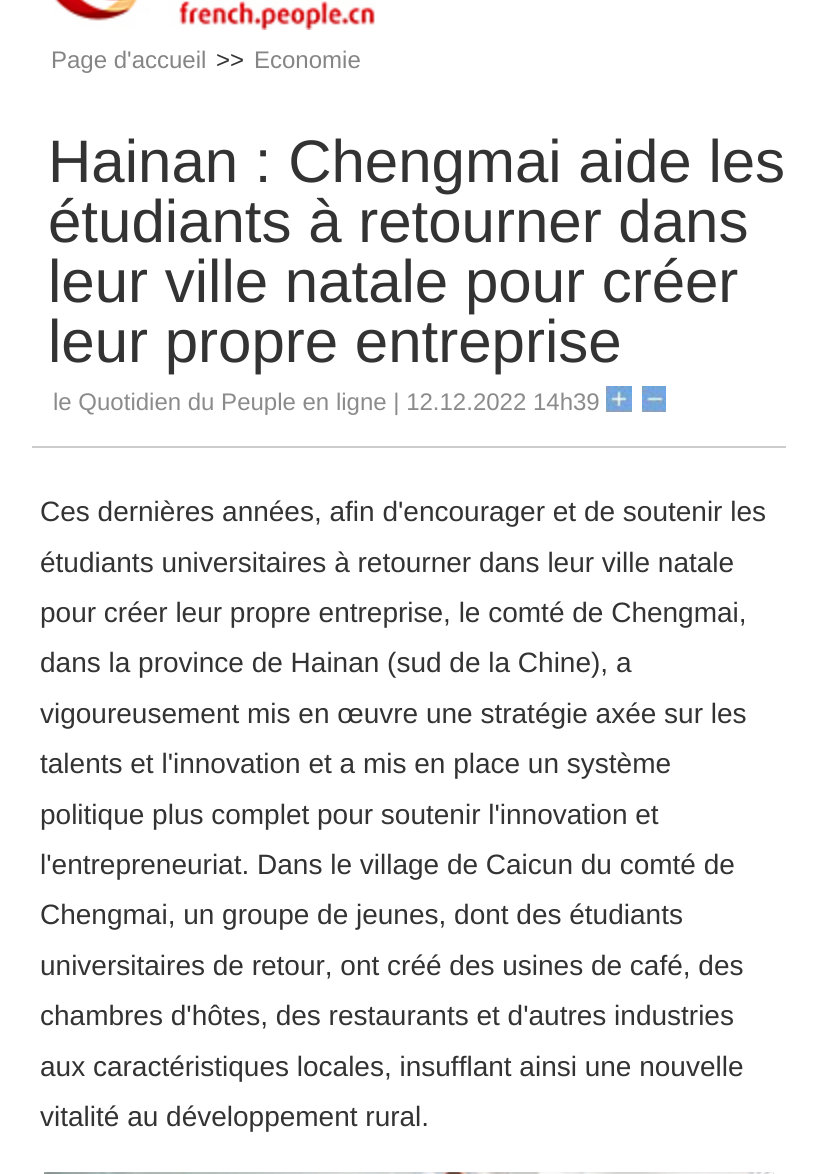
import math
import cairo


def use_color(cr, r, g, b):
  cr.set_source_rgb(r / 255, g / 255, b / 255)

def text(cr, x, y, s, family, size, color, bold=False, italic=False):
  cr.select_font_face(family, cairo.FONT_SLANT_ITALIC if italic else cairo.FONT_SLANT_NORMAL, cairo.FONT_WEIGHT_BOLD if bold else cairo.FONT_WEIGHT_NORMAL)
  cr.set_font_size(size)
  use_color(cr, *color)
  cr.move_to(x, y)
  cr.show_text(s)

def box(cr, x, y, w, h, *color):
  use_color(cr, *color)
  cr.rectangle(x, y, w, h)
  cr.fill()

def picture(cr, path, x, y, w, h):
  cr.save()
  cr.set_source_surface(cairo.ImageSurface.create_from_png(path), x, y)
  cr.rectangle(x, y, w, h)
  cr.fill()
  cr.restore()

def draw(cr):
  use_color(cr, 255, 255, 255)
  cr.paint()
  picture(cr, "img_01.png", 54, 0, 321, 30)
  box(cr, 32, 446, 754, 2, 204, 204, 204)
  picture(cr, "img_02.png", 606, 386, 26, 26)
  picture(cr, "img_03.png", 642, 386, 24, 26)
  picture(cr, "img_04.png", 44, 1172, 730, 2)
  text(cr, 51, 68, "Page d'accueil", "Liberation Sans", 24, (133, 133, 133))
  text(cr, 216, 68, ">>", "Liberation Sans", 24, (51, 51, 51))
  text(cr, 254, 68, "Economie", "Liberation Sans", 24, (133, 133, 133))
  text(cr, 48, 182, "Hainan : Chengmai aide les", "Liberation Sans", 60, (51, 51, 51))
  text(cr, 48, 242, "étudiants à retourner dans", "Liberation Sans", 60, (51, 51, 51))
  text(cr, 48, 302, "leur ville natale pour créer", "Liberation Sans", 60, (51, 51, 51))
  text(cr, 48, 362, "leur propre entreprise", "Liberation Sans", 60, (51, 51, 51))
  text(cr, 53, 410, "le Quotidien du Peuple en ligne | 12.12.2022 14h39", "Liberation Sans", 24, (139, 139, 139))
  text(cr, 40, 521, "Ces dernières années, afin d'encourager et de soutenir les", "Liberation Sans", 28, (51, 51, 51))
  text(cr, 40, 572, "étudiants universitaires à retourner dans leur ville natale", "Liberation Sans", 28, (51, 51, 51))
  text(cr, 40, 622, "pour créer leur propre entreprise, le comté de Chengmai,", "Liberation Sans", 28, (51, 51, 51))
  text(cr, 40, 672, "dans la province de Hainan (sud de la Chine), a", "Liberation Sans", 28, (51, 51, 51))
  text(cr, 40, 723, "vigoureusement mis en œuvre une stratégie axée sur les", "Liberation Sans", 28, (51, 51, 51))
  text(cr, 40, 773, "talents et l'innovation et a mis en place un système", "Liberation Sans", 28, (51, 51, 51))
  text(cr, 40, 824, "politique plus complet pour soutenir l'innovation et", "Liberation Sans", 28, (51, 51, 51))
  text(cr, 40, 874, "l'entrepreneuriat. Dans le village de Caicun du comté de", "Liberation Sans", 28, (51, 51, 51))
  text(cr, 40, 924, "Chengmai, un groupe de jeunes, dont des étudiants", "Liberation Sans", 28, (51, 51, 51))
  text(cr, 40, 975, "universitaires de retour, ont créé des usines de café, des", "Liberation Sans", 28, (51, 51, 51))
  text(cr, 40, 1025, "chambres d'hôtes, des restaurants et d'autres industries", "Liberation Sans", 28, (51, 51, 51))
  text(cr, 40, 1076, "aux caractéristiques locales, insufflant ainsi une nouvelle", "Liberation Sans", 28, (51, 51, 51))
  text(cr, 40, 1126, "vitalité au développement rural.", "Liberation Sans", 28, (51, 51, 51))


surface = cairo.ImageSurface(cairo.FORMAT_RGB24, 818, 1174)
cr = cairo.Context(surface)
options = cairo.FontOptions()
options.set_hint_metrics(cairo.HINT_METRICS_OFF)
options.set_hint_style(cairo.HINT_STYLE_NONE)
cr.set_font_options(options)
cr.set_miter_limit(4)
draw(cr)
surface.write_to_png("out.png")
